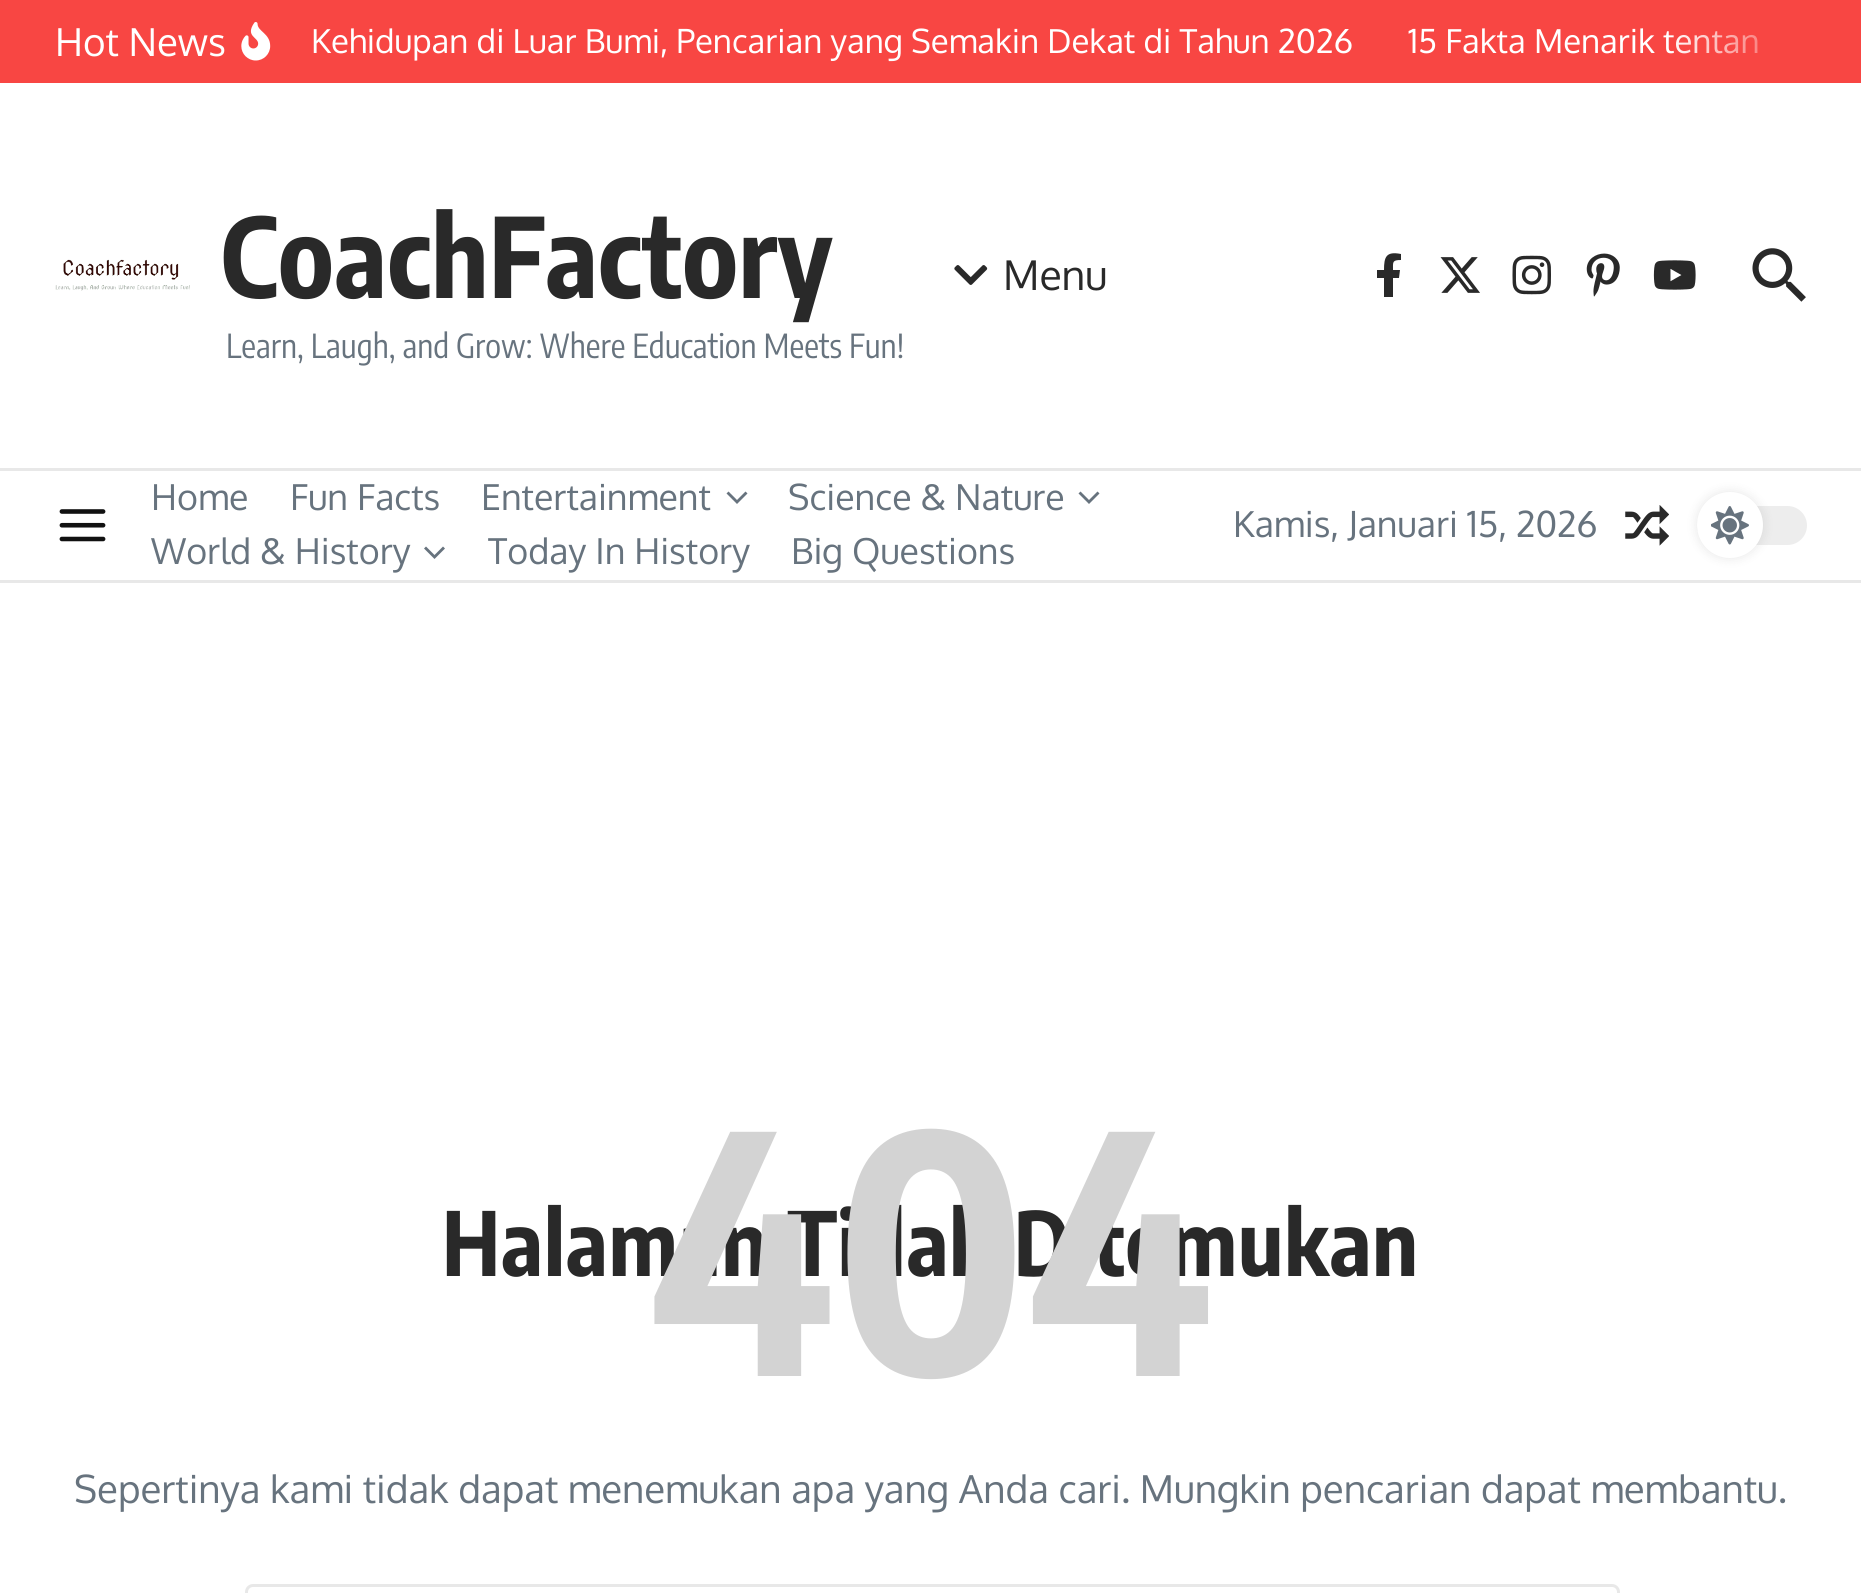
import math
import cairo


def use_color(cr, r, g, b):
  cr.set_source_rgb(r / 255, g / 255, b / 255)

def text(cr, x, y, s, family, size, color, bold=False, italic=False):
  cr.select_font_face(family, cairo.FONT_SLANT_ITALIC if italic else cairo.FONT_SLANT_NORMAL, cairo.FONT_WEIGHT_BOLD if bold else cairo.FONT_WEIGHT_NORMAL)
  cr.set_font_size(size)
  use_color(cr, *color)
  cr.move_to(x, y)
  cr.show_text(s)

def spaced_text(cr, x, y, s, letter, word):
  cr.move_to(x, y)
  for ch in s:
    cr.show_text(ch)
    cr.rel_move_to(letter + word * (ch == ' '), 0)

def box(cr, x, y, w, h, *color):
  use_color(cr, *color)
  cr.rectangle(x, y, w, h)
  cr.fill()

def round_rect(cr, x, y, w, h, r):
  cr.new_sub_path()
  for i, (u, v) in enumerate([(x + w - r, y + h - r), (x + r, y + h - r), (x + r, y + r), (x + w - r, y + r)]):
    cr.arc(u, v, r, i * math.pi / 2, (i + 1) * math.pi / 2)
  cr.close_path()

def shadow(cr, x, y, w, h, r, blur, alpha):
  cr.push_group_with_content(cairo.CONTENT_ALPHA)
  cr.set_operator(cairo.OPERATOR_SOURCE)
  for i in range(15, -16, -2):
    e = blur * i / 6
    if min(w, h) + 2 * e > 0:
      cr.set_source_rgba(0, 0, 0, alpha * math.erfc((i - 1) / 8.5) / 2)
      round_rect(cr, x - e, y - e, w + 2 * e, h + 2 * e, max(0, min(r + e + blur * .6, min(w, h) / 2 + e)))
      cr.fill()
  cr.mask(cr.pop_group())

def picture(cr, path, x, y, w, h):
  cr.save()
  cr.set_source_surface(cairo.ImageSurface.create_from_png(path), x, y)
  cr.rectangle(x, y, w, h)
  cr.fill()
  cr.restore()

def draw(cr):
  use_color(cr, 255, 255, 255)
  cr.paint()
  box(cr, 0, 0, 1861, 83, 248, 70, 67)
  picture(cr, "img_01.png", 241, 22, 30, 39)
  box(cr, 0, 468, 1861, 3, 232, 232, 232)
  picture(cr, "img_02.png", 55, 259, 135, 32)
  picture(cr, "img_03.png", 954, 265, 34, 20)
  use_color(cr, 41, 41, 41)
  cr.new_path()
  cr.move_to(1399, 278)
  cr.line_to(1400, 270)
  cr.line_to(1393, 270)
  cr.curve_to(1393, 262, 1392, 260, 1401, 260)
  cr.line_to(1401, 254)
  cr.curve_to(1386, 251, 1384, 257, 1384, 270)
  cr.line_to(1377, 270)
  cr.line_to(1377, 278)
  cr.line_to(1384, 278)
  cr.line_to(1384, 297)
  cr.line_to(1393, 297)
  cr.line_to(1393, 278)
  cr.close_path()
  cr.fill()
  picture(cr, "img_04.png", 1440, 257, 40, 36)
  picture(cr, "img_05.png", 1512, 255, 39, 40)
  picture(cr, "img_06.png", 1586, 253, 34, 44)
  picture(cr, "img_07.png", 1653, 260, 43, 30)
  picture(cr, "img_08.png", 1752, 248, 54, 54)
  box(cr, 0, 580, 1861, 3, 232, 232, 232)
  picture(cr, "img_09.png", 59, 509, 47, 33)
  use_color(cr, 103, 115, 126)
  cr.new_path()
  cr.move_to(726.5, 493.5)
  cr.line_to(737, 504)
  cr.line_to(747.5, 493.5)
  cr.line_to(745.5, 491.5)
  cr.line_to(737, 500)
  cr.line_to(728.5, 491.5)
  cr.close_path()
  cr.fill()
  cr.new_path()
  cr.move_to(1078.5, 493.5)
  cr.line_to(1089, 504)
  cr.line_to(1099.5, 493.5)
  cr.line_to(1097.5, 491.5)
  cr.line_to(1089, 500)
  cr.line_to(1080.5, 491.5)
  cr.close_path()
  cr.fill()
  cr.new_path()
  cr.move_to(424, 548.5)
  cr.line_to(434.5, 559)
  cr.line_to(445, 548.5)
  cr.line_to(443, 546.5)
  cr.line_to(434.5, 555)
  cr.line_to(426, 546.5)
  cr.close_path()
  cr.fill()
  picture(cr, "img_10.png", 1625, 505, 44, 41)
  use_color(cr, 237, 237, 237)
  round_rect(cr, 1697, 506, 110, 39, 19.5)
  cr.fill()
  use_color(cr, 0, 0, 0)
  shadow(cr, 1697, 492, 66, 66, 33, 5.5, 0.1)
  use_color(cr, 255, 255, 255)
  cr.arc(1730, 525, 33, 0, 2 * math.pi)
  cr.fill()
  picture(cr, "img_11.png", 1711, 506, 38, 39)
  round_rect(cr, 246.5, 1585.5, 1372, 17, 6.5)
  use_color(cr, 232, 232, 232)
  cr.set_line_width(3)
  cr.stroke()
  text(cr, 55, 56, "Hot News", "Oxygen", 38.5, (255, 255, 255))
  text(cr, 311, 53, "Kehidupan di Luar Bumi, Pencarian yang Semakin Dekat di Tahun 2026", "Oxygen", 33, (255, 255, 255))
  text(cr, 1408, 53, "15 Fakta Menarik tentan", "Oxygen", 33, (255, 255, 255))
  gradient = cairo.LinearGradient(1669, 41, 1807, 41)
  gradient.add_color_stop_rgba(0, 0.973, 0.275, 0.263, 0)
  gradient.add_color_stop_rgba(1, 0.973, 0.275, 0.263, 1)
  cr.set_source(gradient)
  cr.rectangle(1672, 31, 86, 23)
  cr.fill()
  text(cr, 220, 298, "CoachFactory", "Encode Sans Condensed", 110, (41, 41, 41), bold=True)
  text(cr, 226, 358, "Learn, Laugh, and Grow: Where Education Meets Fun!", "Encode Sans Condensed", 33, (103, 115, 126))
  text(cr, 1003, 290, "Menu", "Oxygen", 41, (41, 41, 41))
  text(cr, 151, 510, "Home", "Oxygen", 35.75, (103, 115, 126))
  text(cr, 290, 510, "Fun Facts", "Oxygen", 35.75, (103, 115, 126))
  text(cr, 481, 510, "Entertainment", "Oxygen", 35.75, (103, 115, 126))
  text(cr, 788, 510, "Science & Nature", "Oxygen", 35.75, (103, 115, 126))
  text(cr, 151, 564, "World & History", "Oxygen", 35.75, (103, 115, 126))
  text(cr, 488, 564, "Today In History", "Oxygen", 35.75, (103, 115, 126))
  text(cr, 791, 564, "Big Questions", "Oxygen", 35.75, (103, 115, 126))
  text(cr, 1233, 537, "Kamis, Januari 15, 2026", "Oxygen", 35.75, (103, 115, 126))
  cr.select_font_face("Encode Sans Condensed", cairo.FONT_SLANT_NORMAL, cairo.FONT_WEIGHT_BOLD)
  cr.set_font_size(88)
  use_color(cr, 41, 41, 41)
  spaced_text(cr, 442, 1276, "Halaman Tidak Ditemukan", 0.55, 0)
  cr.set_font_size(330)
  use_color(cr, 211, 211, 211)
  spaced_text(cr, 649, 1376, "404", 0.55, 0)
  text(cr, 74, 1503, "Sepertinya kami tidak dapat menemukan apa yang Anda cari. Mungkin pencarian dapat membantu.", "Oxygen", 38.5, (103, 115, 126))


surface = cairo.ImageSurface(cairo.FORMAT_RGB24, 1861, 1593)
cr = cairo.Context(surface)
options = cairo.FontOptions()
options.set_hint_metrics(cairo.HINT_METRICS_OFF)
options.set_hint_style(cairo.HINT_STYLE_NONE)
cr.set_font_options(options)
cr.set_miter_limit(4)
draw(cr)
surface.write_to_png("out.png")
